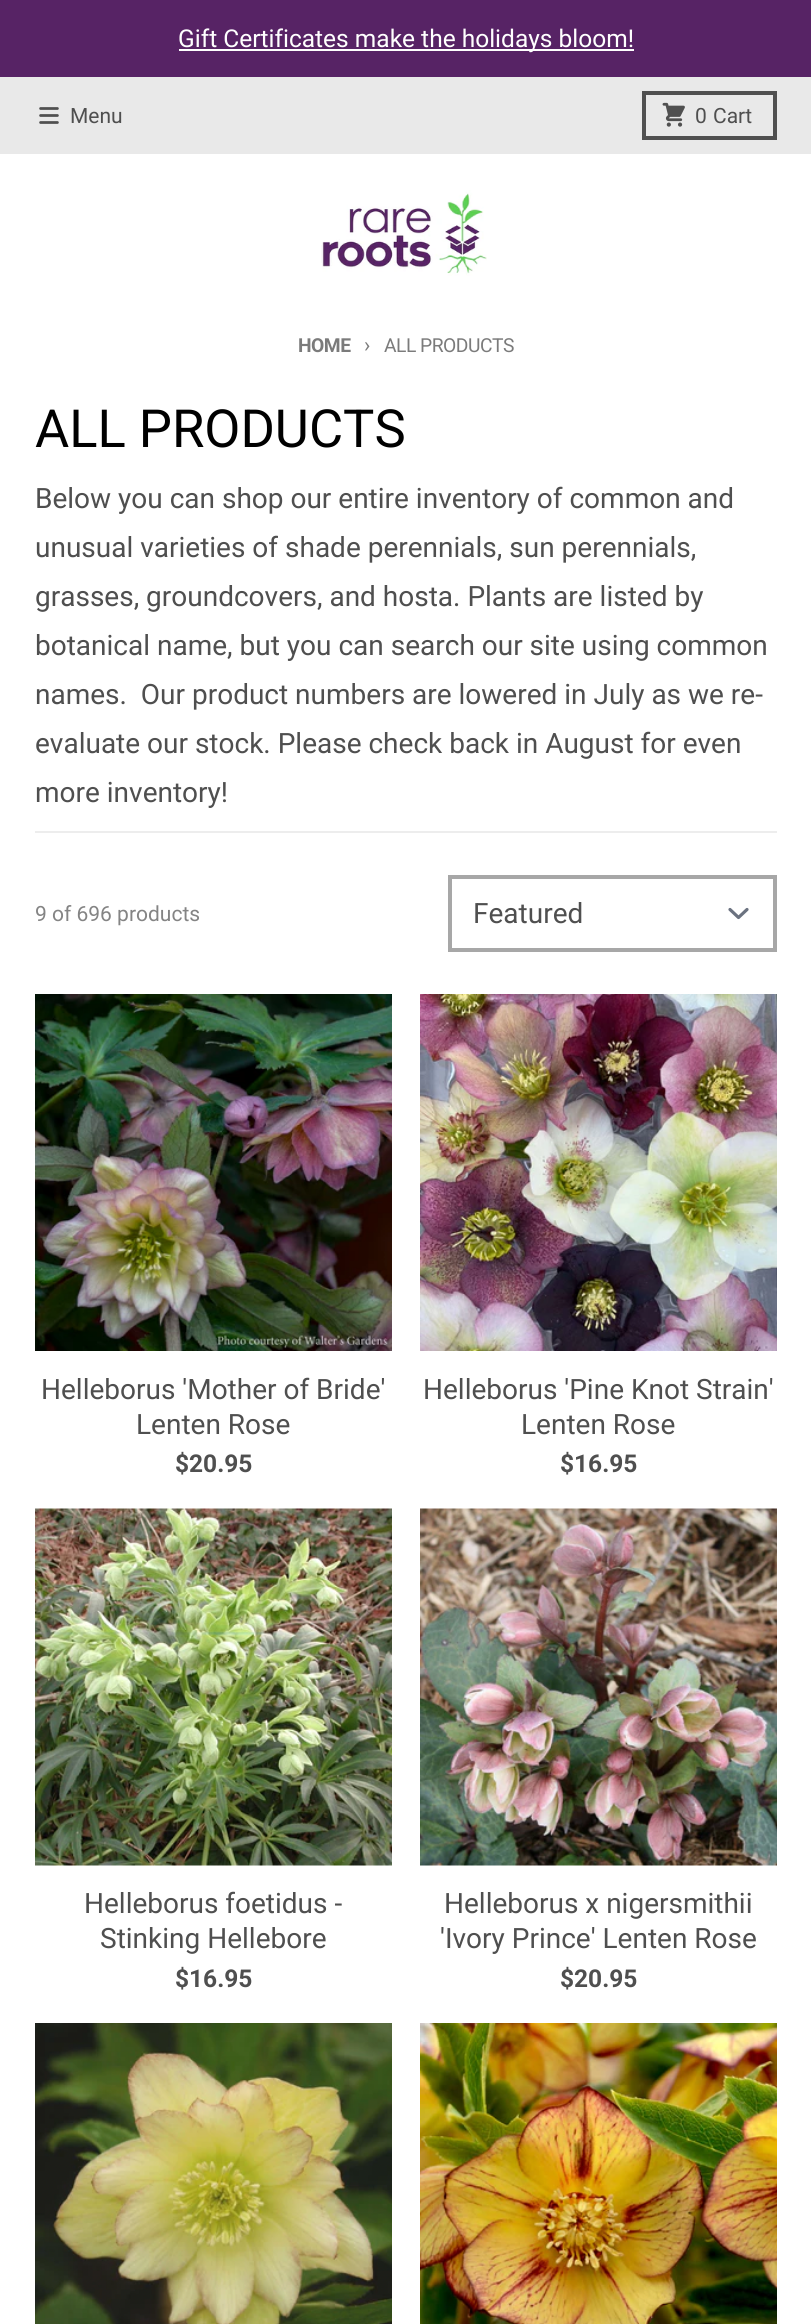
import math
import cairo


def use_color(cr, r, g, b):
  cr.set_source_rgb(r / 255, g / 255, b / 255)

def text(cr, x, y, s, family, size, color, bold=False, italic=False):
  cr.select_font_face(family, cairo.FONT_SLANT_ITALIC if italic else cairo.FONT_SLANT_NORMAL, cairo.FONT_WEIGHT_BOLD if bold else cairo.FONT_WEIGHT_NORMAL)
  cr.set_font_size(size)
  use_color(cr, *color)
  cr.move_to(x, y)
  cr.show_text(s)

def spaced_text(cr, x, y, s, letter, word):
  cr.move_to(x, y)
  for ch in s:
    cr.show_text(ch)
    cr.rel_move_to(letter + word * (ch == ' '), 0)

def box(cr, x, y, w, h, *color):
  use_color(cr, *color)
  cr.rectangle(x, y, w, h)
  cr.fill()

def picture(cr, path, x, y, w, h):
  cr.save()
  cr.set_source_surface(cairo.ImageSurface.create_from_png(path), x, y)
  cr.rectangle(x, y, w, h)
  cr.fill()
  cr.restore()

def draw(cr):
  use_color(cr, 87, 35, 101)
  cr.paint()
  box(cr, 179, 49, 455, 2, 255, 255, 255)
  box(cr, 0, 77, 811, 77, 233, 233, 233)
  picture(cr, "img_01.png", 39, 107, 20, 17)
  cr.rectangle(644, 93, 131, 45)
  use_color(cr, 80, 80, 80)
  cr.set_line_width(4)
  cr.stroke()
  picture(cr, "img_02.png", 662, 102, 23, 25)
  box(cr, 0, 154, 811, 2170, 255, 255, 255)
  picture(cr, "img_03.png", 321, 190, 166, 86)
  box(cr, 35, 831, 742, 2, 237, 237, 237)
  cr.new_path()
  cr.move_to(730, 909.5)
  cr.line_to(738.5, 917.5)
  cr.line_to(747, 909.5)
  use_color(cr, 107, 114, 128)
  cr.set_line_width(3.2)
  cr.set_line_cap(cairo.LINE_CAP_ROUND)
  cr.set_line_join(cairo.LINE_JOIN_ROUND)
  cr.stroke()
  cr.rectangle(450, 877, 325, 73)
  use_color(cr, 167, 167, 167)
  cr.set_line_width(4)
  cr.set_line_cap(cairo.LINE_CAP_BUTT)
  cr.set_line_join(cairo.LINE_JOIN_MITER)
  cr.stroke()
  picture(cr, "img_04.png", 35, 994, 357, 357)
  picture(cr, "img_05.png", 420, 994, 357, 357)
  picture(cr, "img_06.png", 35, 1508, 357, 358)
  picture(cr, "img_07.png", 420, 1508, 357, 358)
  picture(cr, "img_08.png", 35, 2023, 357, 301)
  picture(cr, "img_09.png", 420, 2023, 357, 301)
  text(cr, 178, 47, "Gift Certificates make the holidays bloom!", "Roboto", 24.5, (255, 255, 255))
  text(cr, 70, 123, "Menu", "Roboto", 21, (79, 79, 79))
  text(cr, 695, 123, "0", "Roboto", 21, (79, 79, 79))
  text(cr, 713, 123, "Cart", "Roboto", 21, (79, 79, 79))
  cr.select_font_face("Roboto", cairo.FONT_SLANT_NORMAL, cairo.FONT_WEIGHT_BOLD)
  cr.set_font_size(19.25)
  use_color(cr, 123, 123, 123)
  spaced_text(cr, 298, 352, "HOME", -0.5, 0)
  cr.select_font_face("Roboto")
  cr.set_font_size(21)
  spaced_text(cr, 364, 352, "›", -0.5, 0)
  cr.set_font_size(19.25)
  spaced_text(cr, 384, 352, "ALL PRODUCTS", -0.5, 0)
  text(cr, 35, 447, "ALL PRODUCTS", "Roboto", 52.5, (0, 0, 0))
  text(cr, 35, 508, "Below you can shop our entire inventory of common and", "Roboto", 28, (79, 79, 79))
  text(cr, 35, 557, "unusual varieties of shade perennials, sun perennials,", "Roboto", 28, (79, 79, 79))
  text(cr, 35, 606, "grasses, groundcovers, and hosta. Plants are listed by", "Roboto", 28, (79, 79, 79))
  text(cr, 35, 655, "botanical name, but you can search our site using common", "Roboto", 28, (79, 79, 79))
  text(cr, 35, 704, "names.  Our product numbers are lowered in July as we re-", "Roboto", 28, (79, 79, 79))
  text(cr, 35, 753, "evaluate our stock. Please check back in August for even", "Roboto", 28, (79, 79, 79))
  text(cr, 35, 802, "more inventory!", "Roboto", 28, (79, 79, 79))
  text(cr, 35, 921, "9 of 696 products", "Roboto", 21, (132, 132, 132))
  text(cr, 473, 923, "Featured", "Roboto", 28, (79, 79, 79))
  text(cr, 41, 1399, "Helleborus 'Mother of Bride'", "Roboto", 28, (79, 79, 79))
  text(cr, 136, 1434, "Lenten Rose", "Roboto", 28, (79, 79, 79))
  text(cr, 175, 1472, "$20.95", "Roboto", 24.5, (79, 79, 79), bold=True)
  text(cr, 423, 1399, "Helleborus 'Pine Knot Strain'", "Roboto", 28, (79, 79, 79))
  text(cr, 521, 1434, "Lenten Rose", "Roboto", 28, (79, 79, 79))
  text(cr, 560, 1472, "$16.95", "Roboto", 24.5, (79, 79, 79), bold=True)
  text(cr, 84, 1913, "Helleborus foetidus -", "Roboto", 28, (79, 79, 79))
  text(cr, 100, 1948, "Stinking Hellebore", "Roboto", 28, (79, 79, 79))
  text(cr, 175, 1987, "$16.95", "Roboto", 24.5, (79, 79, 79), bold=True)
  text(cr, 444, 1913, "Helleborus x nigersmithii", "Roboto", 28, (79, 79, 79))
  text(cr, 440, 1948, "'Ivory Prince' Lenten Rose", "Roboto", 28, (79, 79, 79))
  text(cr, 560, 1987, "$20.95", "Roboto", 24.5, (79, 79, 79), bold=True)


surface = cairo.ImageSurface(cairo.FORMAT_RGB24, 811, 2324)
cr = cairo.Context(surface)
options = cairo.FontOptions()
options.set_hint_metrics(cairo.HINT_METRICS_OFF)
options.set_hint_style(cairo.HINT_STYLE_NONE)
cr.set_font_options(options)
cr.set_miter_limit(4)
draw(cr)
surface.write_to_png("out.png")
